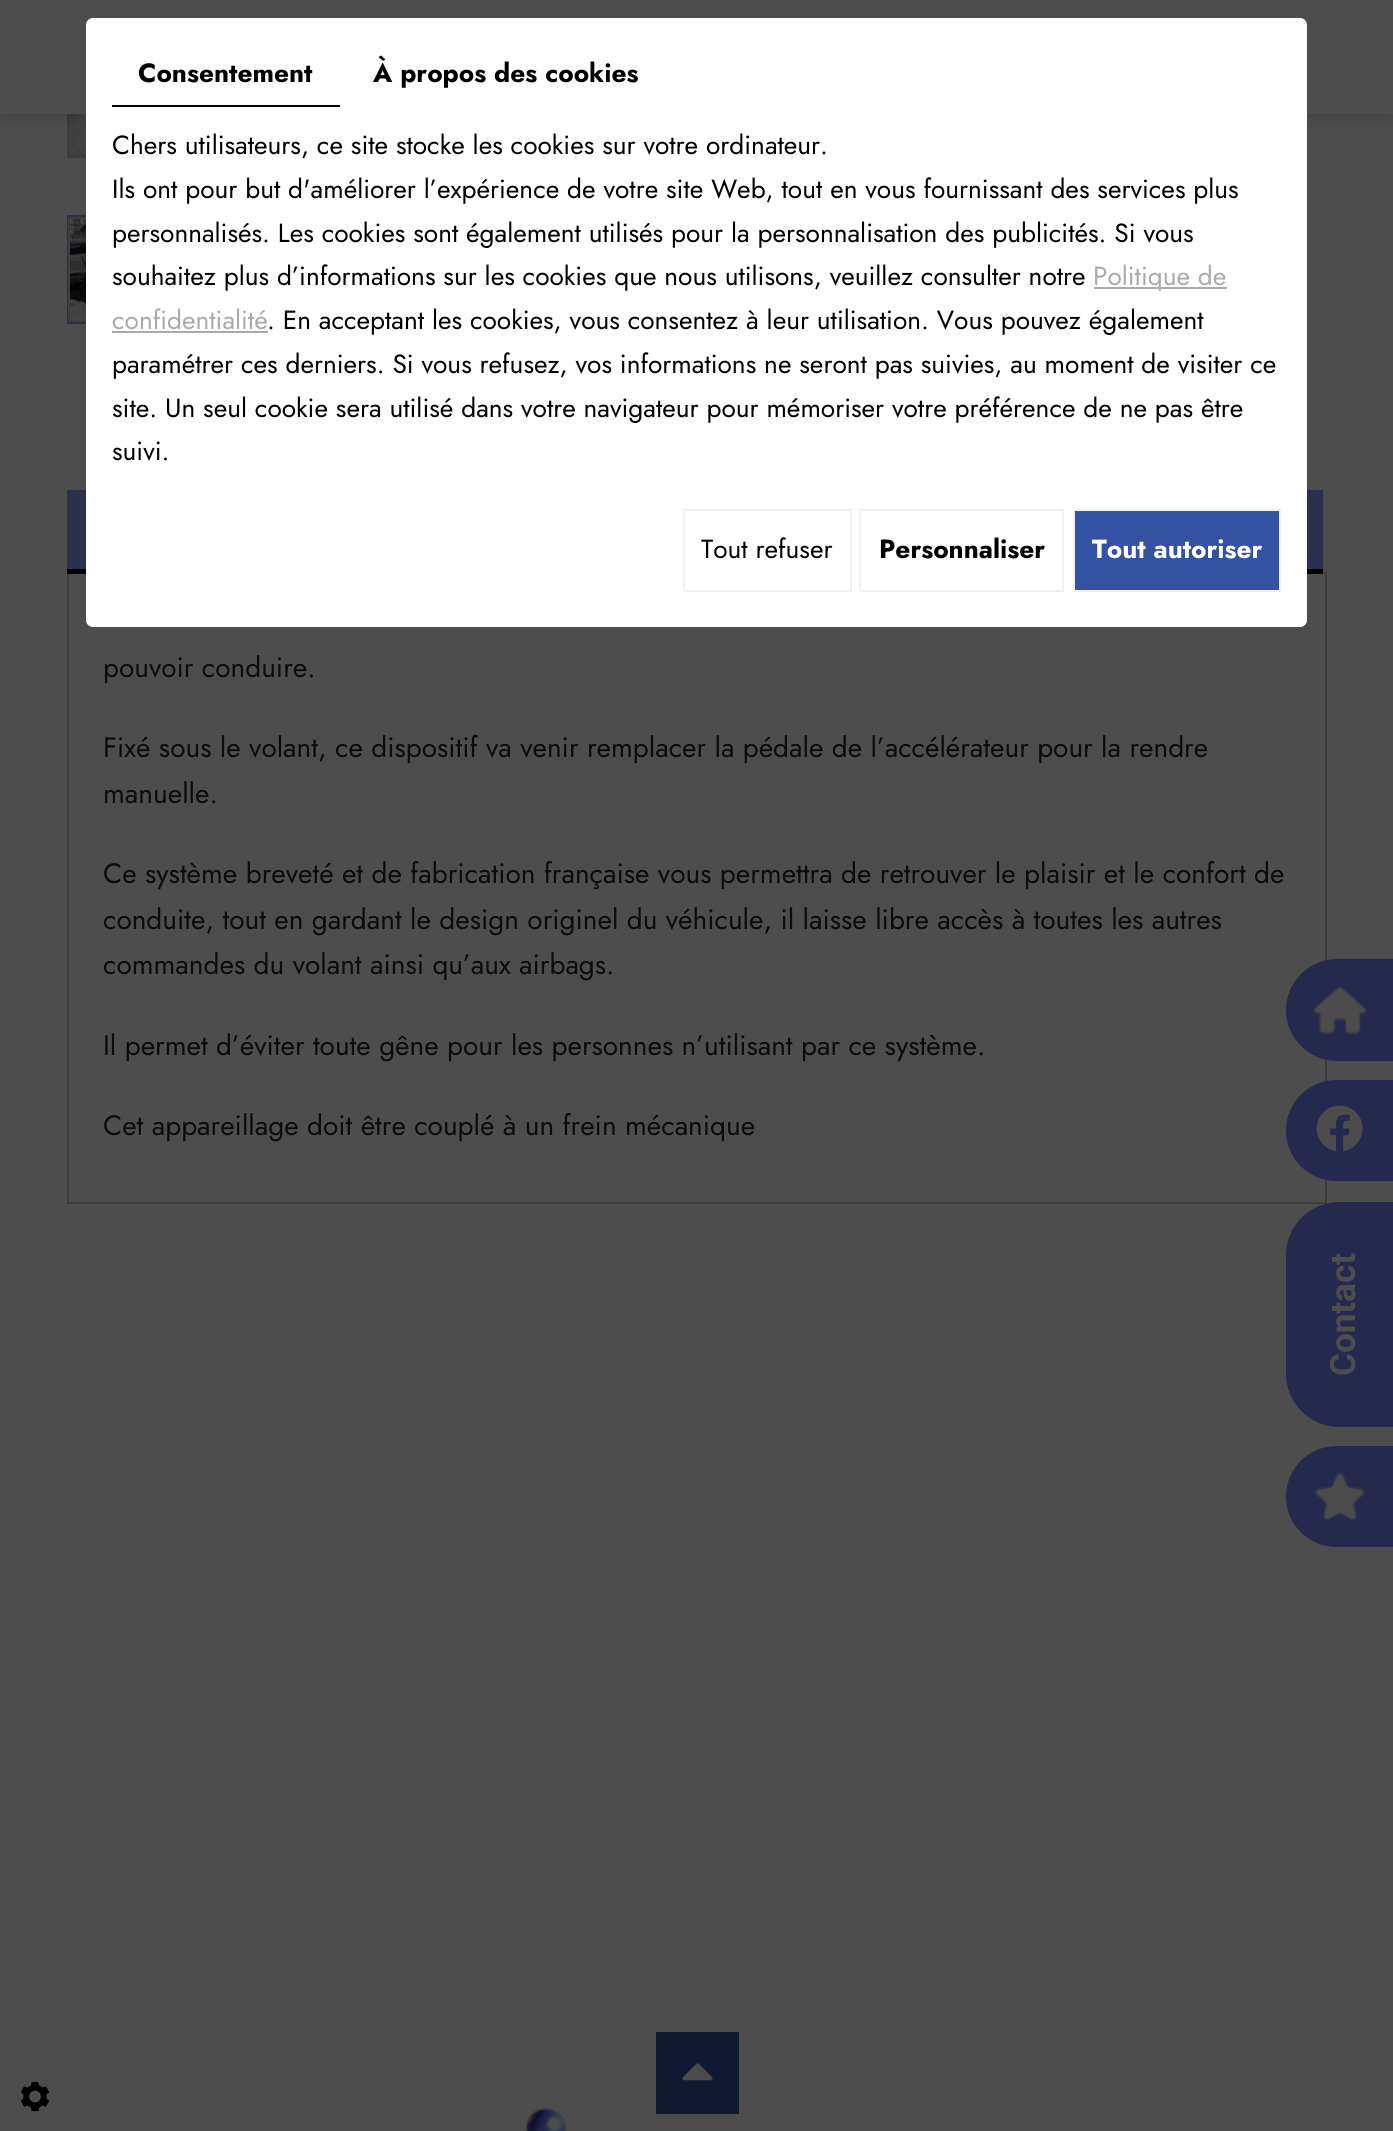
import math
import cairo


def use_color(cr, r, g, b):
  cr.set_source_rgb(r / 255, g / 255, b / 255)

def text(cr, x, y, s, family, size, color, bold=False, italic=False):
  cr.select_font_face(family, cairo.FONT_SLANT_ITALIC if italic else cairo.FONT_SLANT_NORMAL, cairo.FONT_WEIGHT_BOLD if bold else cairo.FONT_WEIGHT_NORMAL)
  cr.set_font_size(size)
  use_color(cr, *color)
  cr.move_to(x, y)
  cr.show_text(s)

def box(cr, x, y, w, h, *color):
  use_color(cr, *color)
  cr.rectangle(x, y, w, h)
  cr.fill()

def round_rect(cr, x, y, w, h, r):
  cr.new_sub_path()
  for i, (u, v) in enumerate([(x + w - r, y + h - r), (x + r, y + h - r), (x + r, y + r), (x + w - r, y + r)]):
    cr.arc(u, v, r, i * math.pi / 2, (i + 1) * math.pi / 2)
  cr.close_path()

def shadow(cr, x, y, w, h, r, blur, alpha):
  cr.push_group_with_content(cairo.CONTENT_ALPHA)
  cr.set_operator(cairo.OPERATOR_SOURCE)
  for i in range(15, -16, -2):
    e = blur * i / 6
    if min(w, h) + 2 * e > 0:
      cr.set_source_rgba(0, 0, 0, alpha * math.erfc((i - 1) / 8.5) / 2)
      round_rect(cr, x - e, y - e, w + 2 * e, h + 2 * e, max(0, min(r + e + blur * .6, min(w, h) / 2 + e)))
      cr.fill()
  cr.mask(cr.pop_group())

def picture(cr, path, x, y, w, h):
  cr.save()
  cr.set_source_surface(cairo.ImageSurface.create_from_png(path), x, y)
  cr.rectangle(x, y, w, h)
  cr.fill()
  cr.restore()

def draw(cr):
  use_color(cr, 77, 77, 77)
  cr.paint()
  cr.rectangle(68, -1, 610, 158)
  use_color(cr, 63, 62, 63)
  cr.stroke()
  cr.rectangle(69, -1, 607, 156)
  use_color(cr, 61, 61, 61)
  cr.stroke()
  picture(cr, "img_01.png", 70, 114, 16, 41)
  use_color(cr, 0, 0, 0)
  shadow(cr, 0, 0, 1393, 114, 0, 9, 0.2)
  box(cr, 0, 0, 1393, 114, 77, 77, 77)
  cr.rectangle(68, 216, 85, 107)
  use_color(cr, 42, 48, 77)
  cr.stroke()
  cr.rectangle(69, 218, 82, 103)
  use_color(cr, 63, 62, 63)
  cr.stroke()
  box(cr, 67, 490, 1256, 79, 42, 48, 77)
  cr.rectangle(68, 573, 1258, 630)
  use_color(cr, 61, 61, 61)
  cr.stroke()
  box(cr, 67, 569, 1256, 5, 0, 0, 0)
  use_color(cr, 255, 255, 255)
  round_rect(cr, 86, 18, 1221, 609, 7)
  cr.fill()
  box(cr, 112, 105, 228, 2, 0, 0, 0)
  box(cr, 1094, 287, 133, 2, 170, 170, 170)
  box(cr, 112, 331, 156, 2, 170, 170, 170)
  cr.rectangle(684, 510, 167, 81)
  use_color(cr, 240, 240, 240)
  cr.stroke()
  cr.rectangle(860, 510, 203, 81)
  cr.stroke()
  use_color(cr, 52, 82, 162)
  cr.rectangle(1074, 510, 206, 81)
  cr.fill_preserve()
  use_color(cr, 240, 240, 240)
  cr.stroke()
  picture(cr, "img_02.png", 70, 218, 16, 103)
  use_color(cr, 36, 41, 77)
  cr.new_path()
  cr.move_to(1337, 959)
  cr.line_to(1393, 959)
  cr.line_to(1393, 1061)
  cr.line_to(1337, 1061)
  cr.curve_to(1309, 1061, 1286, 1038, 1286, 1010)
  cr.curve_to(1286, 982, 1309, 959, 1337, 959)
  cr.close_path()
  cr.fill()
  picture(cr, "img_03.png", 1313, 986, 54, 49)
  cr.new_path()
  cr.move_to(1336.5, 1080)
  cr.line_to(1393, 1080)
  cr.line_to(1393, 1181)
  cr.line_to(1336.5, 1181)
  cr.curve_to(1308.5, 1181, 1286, 1158.5, 1286, 1130.5)
  cr.curve_to(1286, 1102.5, 1308.5, 1080, 1336.5, 1080)
  cr.close_path()
  cr.fill()
  picture(cr, "img_04.png", 1316, 1105, 47, 47)
  cr.new_path()
  cr.move_to(1393, 1427)
  cr.line_to(1339, 1427)
  cr.curve_to(1310, 1427, 1286, 1403, 1286, 1374)
  cr.line_to(1286, 1255)
  cr.curve_to(1286, 1226, 1310, 1202, 1339, 1202)
  cr.line_to(1393, 1202)
  cr.close_path()
  cr.fill()
  cr.new_path()
  cr.move_to(1336.5, 1446)
  cr.line_to(1393, 1446)
  cr.line_to(1393, 1547)
  cr.line_to(1336.5, 1547)
  cr.curve_to(1308.5, 1547, 1286, 1524.5, 1286, 1496.5)
  cr.curve_to(1286, 1468.5, 1308.5, 1446, 1336.5, 1446)
  cr.close_path()
  cr.fill()
  picture(cr, "img_05.png", 1315, 1472, 51, 49)
  picture(cr, "img_06.png", 524, 2108, 43, 23)
  picture(cr, "img_07.png", 20, 2081, 30, 31)
  box(cr, 656, 2032, 83, 82, 16, 25, 49)
  picture(cr, "img_08.png", 682, 2063, 31, 18)
  text(cr, 138, 82, "Consentement", "Jost", 26.25, (0, 0, 0), bold=True)
  text(cr, 373, 82, "À propos des cookies", "Jost", 26.25, (0, 0, 0), bold=True)
  text(cr, 112, 154, "Chers utilisateurs, ce site stocke les cookies sur votre ordinateur.", "Jost", 26.25, (0, 0, 0))
  text(cr, 112, 198, "Ils ont pour but d'améliorer l’expérience de votre site Web, tout en vous fournissant des services plus", "Jost", 26.25, (0, 0, 0))
  text(cr, 112, 242, "personnalisés. Les cookies sont également utilisés pour la personnalisation des publicités. Si vous", "Jost", 26.25, (0, 0, 0))
  text(cr, 112, 285, "souhaitez plus d’informations sur les cookies que nous utilisons, veuillez consulter notre", "Jost", 26.25, (0, 0, 0))
  text(cr, 1093, 285, "Politique de", "Jost", 26.25, (170, 170, 170))
  text(cr, 112, 329, "confidentialité", "Jost", 26.25, (170, 170, 170))
  text(cr, 267, 329, ". En acceptant les cookies, vous consentez à leur utilisation. Vous pouvez également", "Jost", 26.25, (0, 0, 0))
  text(cr, 112, 373, "paramétrer ces derniers. Si vous refusez, vos informations ne seront pas suivies, au moment de visiter ce", "Jost", 26.25, (0, 0, 0))
  text(cr, 112, 417, "site. Un seul cookie sera utilisé dans votre navigateur pour mémoriser votre préférence de ne pas être", "Jost", 26.25, (0, 0, 0))
  text(cr, 112, 460, "suivi.", "Jost", 26.25, (0, 0, 0))
  text(cr, 701, 558, "Tout refuser", "Jost", 26.25, (0, 0, 0))
  text(cr, 879, 558, "Personnaliser", "Jost", 26.25, (0, 0, 0), bold=True)
  text(cr, 1092, 558, "Tout autoriser", "Jost", 26.25, (255, 255, 255), bold=True)
  text(cr, 103, 677, "pouvoir conduire.", "Jost", 28, (12, 12, 12))
  text(cr, 103, 757, "Fixé sous le volant, ce dispositif va venir remplacer la pédale de l’accélérateur pour la rendre", "Jost", 28, (12, 12, 12))
  text(cr, 103, 803, "manuelle.", "Jost", 28, (12, 12, 12))
  text(cr, 103, 883, "Ce système breveté et de fabrication française vous permettra de retrouver le plaisir et le confort de", "Jost", 28, (12, 12, 12))
  text(cr, 103, 929, "conduite, tout en gardant le design originel du véhicule, il laisse libre accès à toutes les autres", "Jost", 28, (12, 12, 12))
  text(cr, 103, 974, "commandes du volant ainsi qu’aux airbags.", "Jost", 28, (12, 12, 12))
  text(cr, 103, 1055, "Il permet d’éviter toute gêne pour les personnes n’utilisant par ce système.", "Jost", 28, (12, 12, 12))
  text(cr, 103, 1135, "Cet appareillage doit être couplé à un frein mécanique", "Jost", 28, (12, 12, 12))
  cr.save()
  cr.translate(1355, 1376)
  cr.rotate(-90 * math.pi / 180)
  text(cr, 0, 0, "Contact", "Roboto", 35, (77, 77, 77), bold=True)
  cr.restore()


surface = cairo.ImageSurface(cairo.FORMAT_RGB24, 1393, 2131)
cr = cairo.Context(surface)
options = cairo.FontOptions()
options.set_hint_metrics(cairo.HINT_METRICS_OFF)
options.set_hint_style(cairo.HINT_STYLE_NONE)
cr.set_font_options(options)
cr.set_miter_limit(4)
draw(cr)
surface.write_to_png("out.png")
